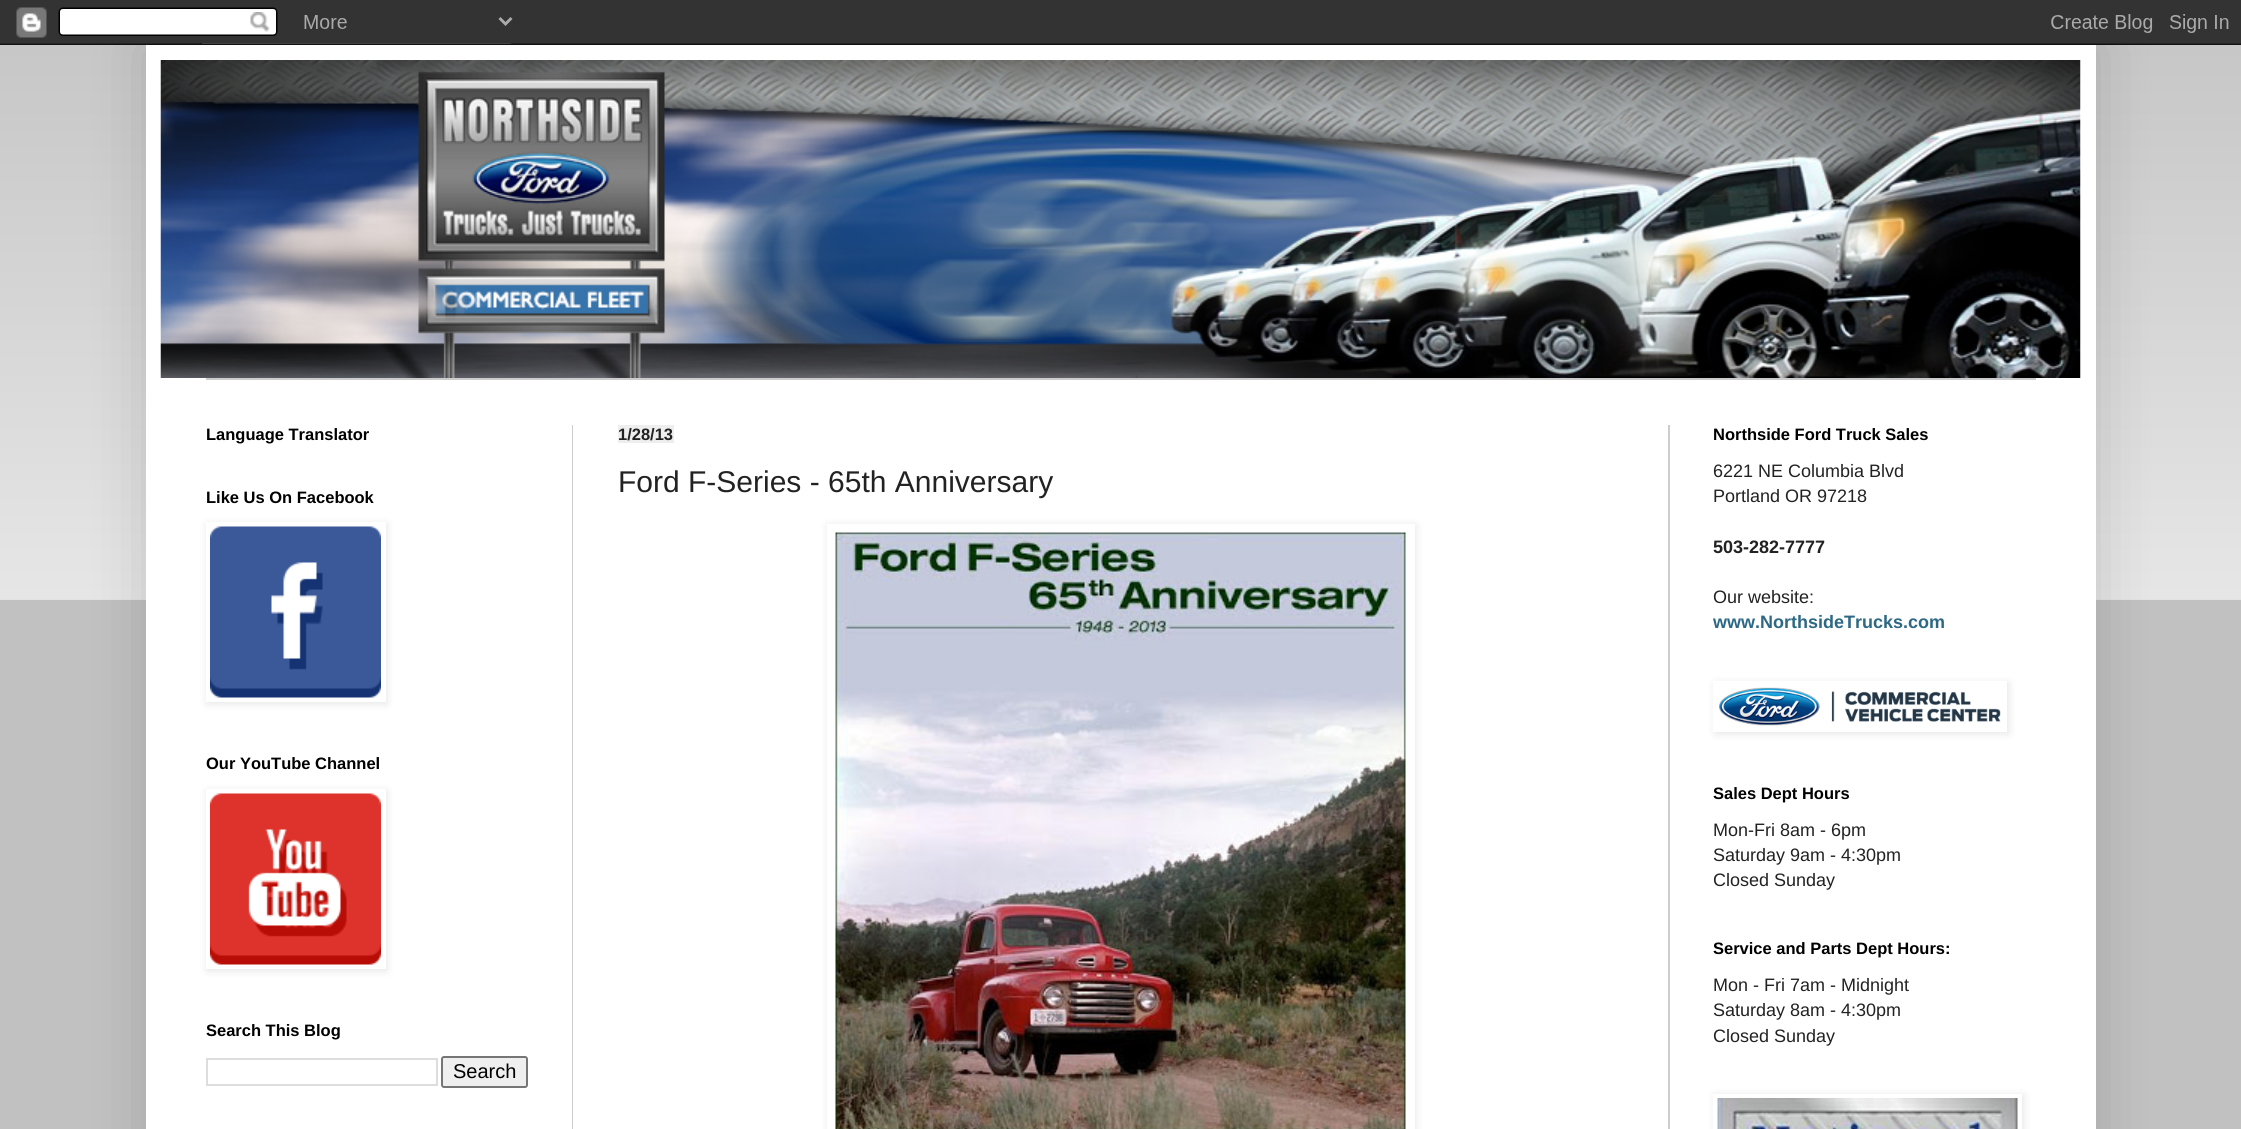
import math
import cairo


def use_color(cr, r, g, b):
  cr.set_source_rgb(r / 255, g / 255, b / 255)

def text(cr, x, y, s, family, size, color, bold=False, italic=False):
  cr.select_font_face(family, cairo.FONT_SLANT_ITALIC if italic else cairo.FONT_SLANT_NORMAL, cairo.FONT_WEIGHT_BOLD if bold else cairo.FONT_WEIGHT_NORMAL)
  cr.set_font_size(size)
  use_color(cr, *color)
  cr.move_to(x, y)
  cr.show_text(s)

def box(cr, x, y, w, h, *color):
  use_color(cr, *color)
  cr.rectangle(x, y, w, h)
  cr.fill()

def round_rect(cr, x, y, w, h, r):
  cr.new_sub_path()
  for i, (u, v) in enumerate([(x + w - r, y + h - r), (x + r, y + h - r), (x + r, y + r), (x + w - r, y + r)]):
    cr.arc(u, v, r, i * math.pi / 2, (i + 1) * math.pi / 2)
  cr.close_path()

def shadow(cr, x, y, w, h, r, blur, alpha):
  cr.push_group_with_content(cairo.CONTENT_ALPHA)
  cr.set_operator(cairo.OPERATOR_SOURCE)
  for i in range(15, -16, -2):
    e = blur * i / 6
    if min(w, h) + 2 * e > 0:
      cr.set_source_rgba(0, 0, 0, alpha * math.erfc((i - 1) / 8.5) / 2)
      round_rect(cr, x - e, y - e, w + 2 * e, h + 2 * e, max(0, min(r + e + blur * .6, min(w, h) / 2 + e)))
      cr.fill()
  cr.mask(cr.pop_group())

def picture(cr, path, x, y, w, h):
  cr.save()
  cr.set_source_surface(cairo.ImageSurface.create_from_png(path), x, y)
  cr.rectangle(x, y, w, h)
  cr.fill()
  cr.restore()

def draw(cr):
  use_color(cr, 193, 193, 193)
  cr.paint()
  picture(cr, "img_02.png", 0, 43, 2241, 557)
  use_color(cr, 0, 0, 0)
  shadow(cr, 146, 45, 1950, 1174, 0, 30, 0.15)
  picture(cr, "img_01.png", 0, 0, 2241, 45)
  box(cr, 146, 45, 1950, 1084, 255, 255, 255)
  picture(cr, "img_03.png", 160, 60, 1921, 318)
  box(cr, 206, 378, 1830, 2, 204, 204, 204)
  box(cr, 572, 425, 1, 704, 204, 204, 204)
  box(cr, 1668, 425, 2, 704, 204, 204, 204)
  cr.save()
  cr.set_fill_rule(cairo.FILL_RULE_EVEN_ODD)
  cr.new_path()
  cr.move_to(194, 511)
  cr.line_to(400, 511)
  cr.line_to(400, 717)
  cr.line_to(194, 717)
  cr.close_path()
  cr.move_to(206, 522)
  cr.line_to(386, 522)
  cr.line_to(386, 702)
  cr.line_to(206, 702)
  cr.close_path()
  cr.clip()
  use_color(cr, 0, 0, 0)
  shadow(cr, 207, 524, 180, 180, 0, 4, 0.1)
  cr.restore()
  picture(cr, "img_04.png", 210, 526, 171, 172)
  cr.save()
  cr.set_fill_rule(cairo.FILL_RULE_EVEN_ODD)
  cr.new_path()
  cr.move_to(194, 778)
  cr.line_to(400, 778)
  cr.line_to(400, 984)
  cr.line_to(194, 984)
  cr.close_path()
  cr.move_to(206, 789)
  cr.line_to(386, 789)
  cr.line_to(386, 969)
  cr.line_to(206, 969)
  cr.close_path()
  cr.clip()
  use_color(cr, 0, 0, 0)
  shadow(cr, 207, 791, 180, 180, 0, 4, 0.1)
  cr.restore()
  picture(cr, "img_05.png", 210, 793, 171, 172)
  cr.rectangle(207, 1059, 230, 26)
  use_color(cr, 221, 221, 221)
  cr.stroke()
  use_color(cr, 239, 239, 239)
  round_rect(cr, 442, 1057, 85, 30, 2)
  cr.fill_preserve()
  use_color(cr, 118, 118, 118)
  cr.stroke()
  box(cr, 618, 425, 56, 18, 238, 238, 238)
  cr.save()
  cr.set_fill_rule(cairo.FILL_RULE_EVEN_ODD)
  cr.new_path()
  cr.move_to(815, 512)
  cr.line_to(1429, 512)
  cr.line_to(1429, 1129)
  cr.line_to(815, 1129)
  cr.close_path()
  cr.move_to(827, 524)
  cr.line_to(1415, 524)
  cr.line_to(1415, 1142)
  cr.line_to(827, 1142)
  cr.close_path()
  cr.clip()
  use_color(cr, 0, 0, 0)
  shadow(cr, 828, 525, 588, 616, 0, 4, 0.1)
  cr.restore()
  picture(cr, "img_06.png", 835, 532, 571, 597)
  cr.save()
  cr.set_fill_rule(cairo.FILL_RULE_EVEN_ODD)
  cr.new_path()
  cr.move_to(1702, 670)
  cr.line_to(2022, 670)
  cr.line_to(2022, 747)
  cr.line_to(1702, 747)
  cr.close_path()
  cr.move_to(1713, 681)
  cr.line_to(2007, 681)
  cr.line_to(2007, 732)
  cr.line_to(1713, 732)
  cr.close_path()
  cr.clip()
  use_color(cr, 0, 0, 0)
  shadow(cr, 1715, 683, 294, 51, 0, 4, 0.1)
  cr.restore()
  picture(cr, "img_07.png", 1719, 687, 282, 39)
  cr.save()
  cr.set_fill_rule(cairo.FILL_RULE_EVEN_ODD)
  cr.new_path()
  cr.move_to(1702, 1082)
  cr.line_to(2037, 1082)
  cr.line_to(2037, 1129)
  cr.line_to(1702, 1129)
  cr.close_path()
  cr.move_to(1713, 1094)
  cr.line_to(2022, 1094)
  cr.line_to(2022, 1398)
  cr.line_to(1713, 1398)
  cr.close_path()
  cr.clip()
  use_color(cr, 0, 0, 0)
  shadow(cr, 1715, 1095, 309, 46, 0, 4, 0.1)
  cr.restore()
  picture(cr, "img_08.png", 1717, 1098, 301, 31)
  text(cr, 206, 440, "Language Translator", "Liberation Sans", 16.5, (0, 0, 0), bold=True)
  text(cr, 206, 503, "Like Us On Facebook", "Liberation Sans", 16.5, (0, 0, 0), bold=True)
  text(cr, 206, 769, "Our YouTube Channel", "Liberation Sans", 16.5, (0, 0, 0), bold=True)
  text(cr, 206, 1036, "Search This Blog", "Liberation Sans", 16.5, (0, 0, 0), bold=True)
  text(cr, 453, 1078, "Search", "Liberation Sans", 20, (0, 0, 0))
  text(cr, 618, 440, "1/28/13", "Liberation Sans", 16.5, (34, 34, 34), bold=True)
  text(cr, 618, 492, "Ford F-Series - 65th Anniversary", "Liberation Sans", 30, (34, 34, 34))
  text(cr, 1713, 440, "Northside Ford Truck Sales", "Liberation Sans", 16.5, (0, 0, 0), bold=True)
  text(cr, 1713, 477, "6221 NE Columbia Blvd", "Liberation Sans", 18, (34, 34, 34))
  text(cr, 1713, 502, "Portland OR 97218", "Liberation Sans", 18, (34, 34, 34))
  text(cr, 1713, 553, "503-282-7777", "Liberation Sans", 18, (34, 34, 34), bold=True)
  text(cr, 1713, 603, "Our website:", "Liberation Sans", 18, (34, 34, 34))
  text(cr, 1713, 628, "www.NorthsideTrucks.com", "Liberation Sans", 18, (45, 104, 133), bold=True)
  text(cr, 1713, 799, "Sales Dept Hours", "Liberation Sans", 16.5, (0, 0, 0), bold=True)
  text(cr, 1713, 836, "Mon-Fri 8am - 6pm", "Liberation Sans", 18, (34, 34, 34))
  text(cr, 1713, 861, "Saturday 9am - 4:30pm", "Liberation Sans", 18, (34, 34, 34))
  text(cr, 1713, 886, "Closed Sunday", "Liberation Sans", 18, (34, 34, 34))
  text(cr, 1713, 954, "Service and Parts Dept Hours:", "Liberation Sans", 16.5, (0, 0, 0), bold=True)
  text(cr, 1713, 991, "Mon - Fri 7am - Midnight", "Liberation Sans", 18, (34, 34, 34))
  text(cr, 1713, 1016, "Saturday 8am - 4:30pm", "Liberation Sans", 18, (34, 34, 34))
  text(cr, 1713, 1042, "Closed Sunday", "Liberation Sans", 18, (34, 34, 34))


surface = cairo.ImageSurface(cairo.FORMAT_RGB24, 2241, 1129)
cr = cairo.Context(surface)
options = cairo.FontOptions()
options.set_hint_metrics(cairo.HINT_METRICS_OFF)
options.set_hint_style(cairo.HINT_STYLE_NONE)
cr.set_font_options(options)
cr.set_miter_limit(4)
draw(cr)
surface.write_to_png("out.png")
